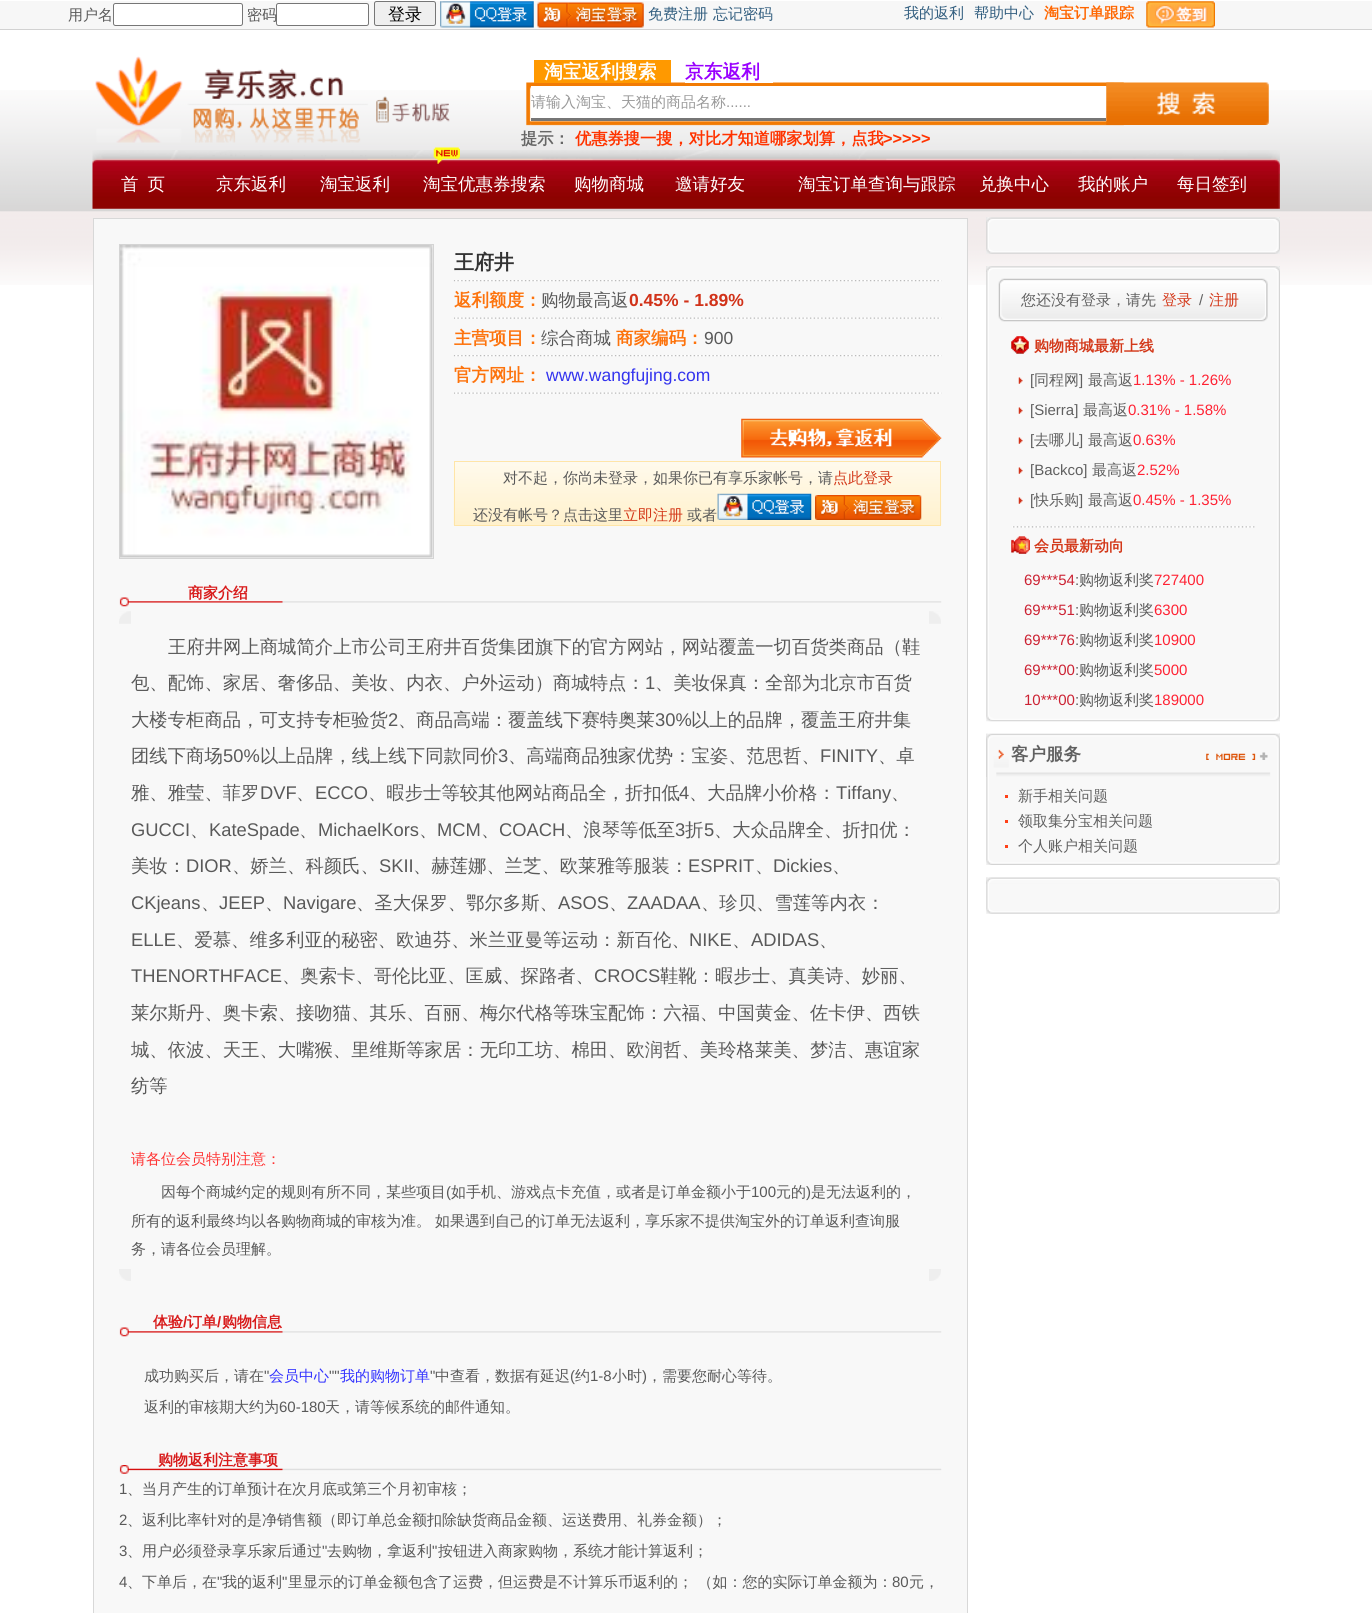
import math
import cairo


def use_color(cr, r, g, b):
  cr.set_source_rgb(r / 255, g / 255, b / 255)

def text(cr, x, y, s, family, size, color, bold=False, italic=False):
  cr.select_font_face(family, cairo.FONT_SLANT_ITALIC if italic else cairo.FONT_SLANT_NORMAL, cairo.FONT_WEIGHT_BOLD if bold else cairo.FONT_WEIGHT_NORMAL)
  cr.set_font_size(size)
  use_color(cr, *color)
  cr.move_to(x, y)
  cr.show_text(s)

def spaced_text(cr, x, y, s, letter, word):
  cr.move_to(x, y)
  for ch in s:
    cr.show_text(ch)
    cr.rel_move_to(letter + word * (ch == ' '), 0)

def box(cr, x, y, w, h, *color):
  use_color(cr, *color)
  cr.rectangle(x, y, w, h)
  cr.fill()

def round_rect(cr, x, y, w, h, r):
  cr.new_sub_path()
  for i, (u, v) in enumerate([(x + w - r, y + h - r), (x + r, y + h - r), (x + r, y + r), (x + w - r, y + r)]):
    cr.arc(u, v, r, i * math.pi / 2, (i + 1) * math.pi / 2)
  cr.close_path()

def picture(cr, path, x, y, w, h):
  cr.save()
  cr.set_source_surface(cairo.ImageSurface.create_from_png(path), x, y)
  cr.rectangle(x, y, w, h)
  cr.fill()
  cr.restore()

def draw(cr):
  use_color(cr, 255, 255, 255)
  cr.paint()
  picture(cr, "img_01.png", 0, 90, 1372, 195)
  box(cr, 0, 1, 1372, 28, 247, 247, 247)
  box(cr, 0, 29, 1372, 1, 210, 210, 210)
  use_color(cr, 255, 255, 255)
  round_rect(cr, 113.5, 3.5, 129, 22, 2)
  cr.fill_preserve()
  use_color(cr, 118, 118, 118)
  cr.set_line_width(1)
  cr.stroke()
  use_color(cr, 255, 255, 255)
  round_rect(cr, 276.5, 3.5, 92, 22, 2)
  cr.fill_preserve()
  use_color(cr, 118, 118, 118)
  cr.stroke()
  use_color(cr, 239, 239, 239)
  round_rect(cr, 374.5, 1.5, 61, 24, 2)
  cr.fill_preserve()
  use_color(cr, 118, 118, 118)
  cr.stroke()
  picture(cr, "img_02.png", 440, 1, 94, 27)
  picture(cr, "img_03.png", 537, 2, 107, 26)
  picture(cr, "img_04.png", 1146, 1, 69, 27)
  picture(cr, "img_05.png", 95, 56, 273, 87)
  picture(cr, "img_06.png", 526, 82, 598, 44)
  box(cr, 534, 60, 137, 23, 255, 153, 0)
  box(cr, 685, 82, 88, 1, 255, 255, 255)
  picture(cr, "img_07.png", 376, 96, 74, 27)
  box(cr, 531, 86, 575, 32, 255, 255, 255)
  box(cr, 531, 118, 575, 3, 118, 118, 118)
  picture(cr, "img_08.png", 1106, 82, 163, 43)
  picture(cr, "img_09.png", 92, 150, 1188, 59)
  picture(cr, "img_10.png", 433, 147, 27, 17)
  use_color(cr, 248, 248, 248)
  cr.rectangle(93.5, 218.5, 874, 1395)
  cr.fill_preserve()
  use_color(cr, 216, 216, 216)
  cr.stroke()
  cr.rectangle(119.5, 244.5, 314, 314)
  use_color(cr, 212, 212, 212)
  cr.stroke()
  picture(cr, "img_11.png", 120, 245, 313, 313)
  picture(cr, "img_12.png", 453, 280, 489, 2)
  picture(cr, "img_13.png", 454, 317, 488, 2)
  picture(cr, "img_12.png", 453, 355, 489, 2)
  picture(cr, "img_13.png", 454, 392, 488, 2)
  picture(cr, "img_14.png", 741, 418, 201, 40)
  picture(cr, "img_15.png", 453, 462, 489, 63)
  cr.rectangle(454.5, 461.5, 486, 64)
  use_color(cr, 255, 229, 167)
  cr.stroke()
  picture(cr, "img_16.png", 717, 493, 95, 27)
  picture(cr, "img_17.png", 815, 495, 107, 25)
  picture(cr, "img_18.png", 119, 597, 823, 10)
  picture(cr, "img_19.png", 119, 611, 12, 13)
  picture(cr, "img_20.png", 929, 611, 12, 13)
  picture(cr, "img_21.png", 119, 1269, 12, 12)
  picture(cr, "img_22.png", 929, 1269, 12, 12)
  picture(cr, "img_18.png", 119, 1327, 823, 10)
  picture(cr, "img_23.png", 119, 1465, 823, 9)
  picture(cr, "img_24.png", 986, 217, 294, 37)
  picture(cr, "img_25.png", 986, 217, 294, 6)
  picture(cr, "img_26.png", 986, 266, 294, 456)
  picture(cr, "img_27.png", 986, 266, 294, 6)
  picture(cr, "img_28.png", 998, 278, 270, 44)
  picture(cr, "img_29.png", 1012, 526, 243, 2)
  picture(cr, "img_30.png", 1011, 336, 18, 18)
  picture(cr, "img_31.png", 1018, 377, 5, 7)
  picture(cr, "img_31.png", 1018, 407, 5, 7)
  picture(cr, "img_31.png", 1018, 437, 5, 7)
  picture(cr, "img_31.png", 1018, 467, 5, 7)
  picture(cr, "img_31.png", 1018, 497, 5, 7)
  picture(cr, "img_32.png", 1011, 536, 19, 18)
  picture(cr, "img_33.png", 986, 733, 294, 132)
  picture(cr, "img_34.png", 986, 733, 294, 44)
  picture(cr, "img_35.png", 1206, 752, 62, 8)
  box(cr, 1005, 795, 3, 3, 255, 65, 25)
  box(cr, 1005, 820, 3, 3, 255, 65, 25)
  box(cr, 1005, 845, 3, 3, 255, 65, 25)
  picture(cr, "img_36.png", 986, 877, 294, 37)
  picture(cr, "img_37.png", 986, 877, 294, 7)
  text(cr, 68, 20, "用户名", "WenQuanYi Zen Hei Medium", 15, (89, 89, 89))
  text(cr, 247, 20, "密码", "WenQuanYi Zen Hei Medium", 15, (89, 89, 89))
  text(cr, 388, 20, "登录", "WenQuanYi Zen Hei Medium", 17, (0, 0, 0))
  text(cr, 648, 19, "免费注册", "WenQuanYi Zen Hei Medium", 15, (50, 94, 127))
  text(cr, 713, 19, "忘记密码", "WenQuanYi Zen Hei Medium", 15, (50, 94, 127))
  text(cr, 904, 18, "我的返利", "WenQuanYi Zen Hei Medium", 15, (50, 94, 127))
  text(cr, 974, 18, "帮助中心", "WenQuanYi Zen Hei Medium", 15, (50, 94, 127))
  text(cr, 1044, 18, "淘宝订单跟踪", "WenQuanYi Zen Hei", 15, (255, 102, 0), bold=True)
  text(cr, 544, 78, "淘宝返利搜索", "WenQuanYi Zen Hei", 18.75, (255, 255, 255), bold=True)
  text(cr, 685, 78, "京东返利", "WenQuanYi Zen Hei", 18.75, (153, 0, 255), bold=True)
  text(cr, 531, 107, "请输入淘宝、天猫的商品名称", "WenQuanYi Zen Hei Medium", 15, (153, 153, 153))
  text(cr, 726, 107, "......", "Liberation Sans", 15, (153, 153, 153))
  text(cr, 521, 144, "提示：", "WenQuanYi Zen Hei", 16.25, (102, 102, 102), bold=True)
  text(cr, 575, 144, "优惠券搜一搜，对比才知道哪家划算，点我", "WenQuanYi Zen Hei", 16.25, (255, 51, 0), bold=True)
  text(cr, 883, 144, ">>>>>", "Liberation Sans", 16.25, (255, 51, 0), bold=True)
  cr.select_font_face("WenQuanYi Zen Hei Medium")
  cr.set_font_size(17.5)
  use_color(cr, 255, 255, 255)
  spaced_text(cr, 121, 190, "首页", 9, 0)
  text(cr, 216, 190, "京东返利", "WenQuanYi Zen Hei Medium", 17.5, (255, 255, 255))
  text(cr, 320, 190, "淘宝返利", "WenQuanYi Zen Hei Medium", 17.5, (255, 255, 255))
  text(cr, 423, 190, "淘宝优惠券搜索", "WenQuanYi Zen Hei Medium", 17.5, (255, 255, 255))
  text(cr, 574, 190, "购物商城", "WenQuanYi Zen Hei Medium", 17.5, (255, 255, 255))
  text(cr, 675, 190, "邀请好友", "WenQuanYi Zen Hei Medium", 17.5, (255, 255, 255))
  text(cr, 798, 190, "淘宝订单查询与跟踪", "WenQuanYi Zen Hei Medium", 17.5, (255, 255, 255))
  text(cr, 979, 190, "兑换中心", "WenQuanYi Zen Hei Medium", 17.5, (255, 255, 255))
  text(cr, 1078, 190, "我的账户", "WenQuanYi Zen Hei Medium", 17.5, (255, 255, 255))
  text(cr, 1177, 190, "每日签到", "WenQuanYi Zen Hei Medium", 17.5, (255, 255, 255))
  text(cr, 454, 269, "王府井", "WenQuanYi Zen Hei", 20, (51, 51, 51), bold=True)
  text(cr, 454, 306, "返利额度：", "WenQuanYi Zen Hei", 17.5, (253, 115, 12), bold=True)
  text(cr, 541, 306, "购物最高返", "WenQuanYi Zen Hei Medium", 17.5, (89, 89, 89))
  text(cr, 629, 306, "0.45% - 1.89%", "Liberation Sans", 17.5, (209, 50, 25), bold=True)
  text(cr, 454, 344, "主营项目：", "WenQuanYi Zen Hei", 17.5, (253, 115, 12), bold=True)
  text(cr, 541, 344, "综合商城", "WenQuanYi Zen Hei Medium", 17.5, (89, 89, 89))
  text(cr, 616, 344, "商家编码：", "WenQuanYi Zen Hei", 17.5, (253, 115, 12), bold=True)
  text(cr, 704, 344, "900", "Liberation Sans", 17.5, (89, 89, 89))
  text(cr, 454, 381, "官方网址：", "WenQuanYi Zen Hei", 17.5, (253, 115, 12), bold=True)
  text(cr, 546, 381, "www.wangfujing.com", "Liberation Sans", 17.5, (51, 51, 238))
  text(cr, 503, 483, "对不起，你尚未登录，如果你已有享乐家帐号，请", "WenQuanYi Zen Hei Medium", 15, (89, 89, 89))
  text(cr, 833, 483, "点此登录", "WenQuanYi Zen Hei Medium", 15, (211, 56, 25))
  text(cr, 473, 520, "还没有帐号？点击这里", "WenQuanYi Zen Hei Medium", 15, (89, 89, 89))
  text(cr, 623, 520, "立即注册", "WenQuanYi Zen Hei Medium", 15, (211, 56, 25))
  text(cr, 687, 520, "或者", "WenQuanYi Zen Hei Medium", 15, (89, 89, 89))
  text(cr, 188, 598, "商家介绍", "WenQuanYi Zen Hei", 15, (216, 27, 27), bold=True)
  text(cr, 168, 653, "王府井网上商城简介上市公司王府井百货集团旗下的官方网站，网站覆盖一切百货类商品（鞋", "WenQuanYi Zen Hei Medium", 18.35, (89, 89, 89))
  text(cr, 131, 689, "包、配饰、家居、奢侈品、美妆、内衣、户外运动）商城特点：", "WenQuanYi Zen Hei Medium", 18.35, (89, 89, 89))
  text(cr, 645, 689, "1", "Liberation Sans", 18.35, (89, 89, 89))
  text(cr, 655, 689, "、美妆保真：全部为北京市百货", "WenQuanYi Zen Hei Medium", 18.35, (89, 89, 89))
  text(cr, 131, 726, "大楼专柜商品，可支持专柜验货", "WenQuanYi Zen Hei Medium", 18.35, (89, 89, 89))
  text(cr, 388, 726, "2", "Liberation Sans", 18.35, (89, 89, 89))
  text(cr, 398, 726, "、商品高端：覆盖线下赛特奥莱", "WenQuanYi Zen Hei Medium", 18.35, (89, 89, 89))
  text(cr, 655, 726, "30%", "Liberation Sans", 18.35, (89, 89, 89))
  text(cr, 691, 726, "以上的品牌，覆盖王府井集", "WenQuanYi Zen Hei Medium", 18.35, (89, 89, 89))
  text(cr, 131, 762, "团线下商场", "WenQuanYi Zen Hei Medium", 18.35, (89, 89, 89))
  text(cr, 223, 762, "50%", "Liberation Sans", 18.35, (89, 89, 89))
  text(cr, 260, 762, "以上品牌，线上线下同款同价", "WenQuanYi Zen Hei Medium", 18.35, (89, 89, 89))
  text(cr, 498, 762, "3", "Liberation Sans", 18.35, (89, 89, 89))
  text(cr, 508, 762, "、高端商品独家优势：宝姿、范思哲、", "WenQuanYi Zen Hei Medium", 18.35, (89, 89, 89))
  text(cr, 820, 762, "FINITY", "Liberation Sans", 18.35, (89, 89, 89))
  text(cr, 878, 762, "、卓", "WenQuanYi Zen Hei Medium", 18.35, (89, 89, 89))
  text(cr, 131, 799, "雅、雅莹、菲罗", "WenQuanYi Zen Hei Medium", 18.35, (89, 89, 89))
  text(cr, 260, 799, "DVF", "Liberation Sans", 18.35, (89, 89, 89))
  text(cr, 315, 799, "ECCO", "Liberation Sans", 18.35, (89, 89, 89))
  text(cr, 368, 799, "、暇步士等较其他网站商品全，折扣低", "WenQuanYi Zen Hei Medium", 18.35, (89, 89, 89))
  text(cr, 679, 799, "4", "Liberation Sans", 18.35, (89, 89, 89))
  text(cr, 689, 799, "、大品牌小价格：", "WenQuanYi Zen Hei Medium", 18.35, (89, 89, 89))
  text(cr, 836, 799, "Tiffany", "Liberation Sans", 18.35, (89, 89, 89))
  text(cr, 296, 799, "、", "WenQuanYi Zen Hei Medium", 18.35, (89, 89, 89))
  text(cr, 891, 799, "、", "WenQuanYi Zen Hei Medium", 18.35, (89, 89, 89))
  text(cr, 131, 836, "GUCCI", "Liberation Sans", 18.35, (89, 89, 89))
  text(cr, 190, 836, "、", "WenQuanYi Zen Hei Medium", 18.35, (89, 89, 89))
  text(cr, 209, 836, "KateSpade", "Liberation Sans", 18.35, (89, 89, 89))
  text(cr, 299, 836, "、", "WenQuanYi Zen Hei Medium", 18.35, (89, 89, 89))
  text(cr, 318, 836, "MichaelKors", "Liberation Sans", 18.35, (89, 89, 89))
  text(cr, 419, 836, "、", "WenQuanYi Zen Hei Medium", 18.35, (89, 89, 89))
  text(cr, 437, 836, "MCM", "Liberation Sans", 18.35, (89, 89, 89))
  text(cr, 481, 836, "、", "WenQuanYi Zen Hei Medium", 18.35, (89, 89, 89))
  text(cr, 499, 836, "COACH", "Liberation Sans", 18.35, (89, 89, 89))
  text(cr, 565, 836, "、浪琴等低至", "WenQuanYi Zen Hei Medium", 18.35, (89, 89, 89))
  text(cr, 675, 836, "3", "Liberation Sans", 18.35, (89, 89, 89))
  text(cr, 685, 836, "折", "WenQuanYi Zen Hei Medium", 18.35, (89, 89, 89))
  text(cr, 704, 836, "5", "Liberation Sans", 18.35, (89, 89, 89))
  text(cr, 714, 836, "、大众品牌全、折扣优：", "WenQuanYi Zen Hei Medium", 18.35, (89, 89, 89))
  text(cr, 131, 872, "美妆：", "WenQuanYi Zen Hei Medium", 18.35, (89, 89, 89))
  text(cr, 186, 872, "DIOR", "Liberation Sans", 18.35, (89, 89, 89))
  text(cr, 232, 872, "、娇兰、科颜氏、", "WenQuanYi Zen Hei Medium", 18.35, (89, 89, 89))
  text(cr, 379, 872, "SKII", "Liberation Sans", 18.35, (89, 89, 89))
  text(cr, 413, 872, "、赫莲娜、兰芝、欧莱雅等服装：", "WenQuanYi Zen Hei Medium", 18.35, (89, 89, 89))
  text(cr, 688, 872, "ESPRIT", "Liberation Sans", 18.35, (89, 89, 89))
  text(cr, 755, 872, "、", "WenQuanYi Zen Hei Medium", 18.35, (89, 89, 89))
  text(cr, 773, 872, "Dickies", "Liberation Sans", 18.35, (89, 89, 89))
  text(cr, 832, 872, "、", "WenQuanYi Zen Hei Medium", 18.35, (89, 89, 89))
  text(cr, 131, 909, "CKjeans", "Liberation Sans", 18.35, (89, 89, 89))
  text(cr, 219, 909, "JEEP", "Liberation Sans", 18.35, (89, 89, 89))
  text(cr, 283, 909, "Navigare", "Liberation Sans", 18.35, (89, 89, 89))
  text(cr, 356, 909, "、圣大保罗、鄂尔多斯、", "WenQuanYi Zen Hei Medium", 18.35, (89, 89, 89))
  text(cr, 558, 909, "ASOS", "Liberation Sans", 18.35, (89, 89, 89))
  text(cr, 627, 909, "ZAADAA", "Liberation Sans", 18.35, (89, 89, 89))
  text(cr, 701, 909, "、珍贝、雪莲等内衣：", "WenQuanYi Zen Hei Medium", 18.35, (89, 89, 89))
  text(cr, 201, 909, "、", "WenQuanYi Zen Hei Medium", 18.35, (89, 89, 89))
  text(cr, 265, 909, "、", "WenQuanYi Zen Hei Medium", 18.35, (89, 89, 89))
  text(cr, 609, 909, "、", "WenQuanYi Zen Hei Medium", 18.35, (89, 89, 89))
  text(cr, 131, 946, "ELLE", "Liberation Sans", 18.35, (89, 89, 89))
  text(cr, 176, 946, "、爱慕、维多利亚的秘密、欧迪芬、米兰亚曼等运动：新百伦、", "WenQuanYi Zen Hei Medium", 18.35, (89, 89, 89))
  text(cr, 689, 946, "NIKE", "Liberation Sans", 18.35, (89, 89, 89))
  text(cr, 732, 946, "、", "WenQuanYi Zen Hei Medium", 18.35, (89, 89, 89))
  text(cr, 751, 946, "ADIDAS", "Liberation Sans", 18.35, (89, 89, 89))
  text(cr, 819, 946, "、", "WenQuanYi Zen Hei Medium", 18.35, (89, 89, 89))
  text(cr, 131, 982, "THENORTHFACE", "Liberation Sans", 18.35, (89, 89, 89))
  text(cr, 282, 982, "、奥索卡、哥伦比亚、匡威、探路者、", "WenQuanYi Zen Hei Medium", 18.35, (89, 89, 89))
  text(cr, 594, 982, "CROCS", "Liberation Sans", 18.35, (89, 89, 89))
  text(cr, 660, 982, "鞋靴：暇步士、真美诗、妙丽、", "WenQuanYi Zen Hei Medium", 18.35, (89, 89, 89))
  text(cr, 131, 1019, "莱尔斯丹、奥卡索、接吻猫、其乐、百丽、梅尔代格等珠宝配饰：六福、中国黄金、佐卡伊、西铁", "WenQuanYi Zen Hei Medium", 18.35, (89, 89, 89))
  text(cr, 131, 1056, "城、依波、天王、大嘴猴、里维斯等家居：无印工坊、棉田、欧润哲、美玲格莱美、梦洁、惠谊家", "WenQuanYi Zen Hei Medium", 18.35, (89, 89, 89))
  text(cr, 131, 1092, "纺等", "WenQuanYi Zen Hei Medium", 18.35, (89, 89, 89))
  text(cr, 131, 1164, "请各位会员特别注意：", "WenQuanYi Zen Hei Medium", 15, (255, 51, 51))
  text(cr, 161, 1197, "因每个商城约定的规则有所不同，某些项目", "WenQuanYi Zen Hei Medium", 15, (89, 89, 89))
  text(cr, 446, 1197, "(", "Liberation Sans", 15, (89, 89, 89))
  text(cr, 451, 1197, "如手机、游戏点卡充值，或者是订单金额小于", "WenQuanYi Zen Hei Medium", 15, (89, 89, 89))
  text(cr, 751, 1197, "100", "Liberation Sans", 15, (89, 89, 89))
  text(cr, 776, 1197, "元的", "WenQuanYi Zen Hei Medium", 15, (89, 89, 89))
  text(cr, 806, 1197, ")", "Liberation Sans", 15, (89, 89, 89))
  text(cr, 811, 1197, "是无法返利的，", "WenQuanYi Zen Hei Medium", 15, (89, 89, 89))
  text(cr, 131, 1226, "所有的返利最终均以各购物商城的审核为准。", "WenQuanYi Zen Hei Medium", 15, (89, 89, 89))
  text(cr, 435, 1226, "如果遇到自己的订单无法返利，享乐家不提供淘宝外的订单返利查询服", "WenQuanYi Zen Hei Medium", 15, (89, 89, 89))
  text(cr, 131, 1254, "务，请各位会员理解。", "WenQuanYi Zen Hei Medium", 15, (89, 89, 89))
  text(cr, 153, 1327, "体验", "WenQuanYi Zen Hei", 15, (216, 27, 27), bold=True)
  text(cr, 183, 1327, "/", "Liberation Sans", 15, (216, 27, 27), bold=True)
  text(cr, 187, 1327, "订单", "WenQuanYi Zen Hei", 15, (216, 27, 27), bold=True)
  text(cr, 217, 1327, "/", "Liberation Sans", 15, (216, 27, 27), bold=True)
  text(cr, 222, 1327, "购物信息", "WenQuanYi Zen Hei", 15, (216, 27, 27), bold=True)
  text(cr, 144, 1381, "成功购买后，请在", "WenQuanYi Zen Hei Medium", 15, (89, 89, 89))
  text(cr, 264, 1381, "\"", "Liberation Sans", 15, (89, 89, 89))
  text(cr, 269, 1381, "会员中心", "WenQuanYi Zen Hei Medium", 15, (51, 51, 255))
  text(cr, 329, 1381, "\"\"", "Liberation Sans", 15, (89, 89, 89))
  text(cr, 340, 1381, "我的购物订单", "WenQuanYi Zen Hei Medium", 15, (51, 51, 255))
  text(cr, 430, 1381, "\"", "Liberation Sans", 15, (89, 89, 89))
  text(cr, 435, 1381, "中查看，数据有延迟", "WenQuanYi Zen Hei Medium", 15, (89, 89, 89))
  text(cr, 570, 1381, "(", "Liberation Sans", 15, (89, 89, 89))
  text(cr, 575, 1381, "约", "WenQuanYi Zen Hei Medium", 15, (89, 89, 89))
  text(cr, 590, 1381, "1-8", "Liberation Sans", 15, (89, 89, 89))
  text(cr, 612, 1381, "小时", "WenQuanYi Zen Hei Medium", 15, (89, 89, 89))
  text(cr, 642, 1381, ")", "Liberation Sans", 15, (89, 89, 89))
  text(cr, 647, 1381, "，需要您耐心等待。", "WenQuanYi Zen Hei Medium", 15, (89, 89, 89))
  text(cr, 144, 1412, "返利的审核期大约为", "WenQuanYi Zen Hei Medium", 15, (89, 89, 89))
  text(cr, 279, 1412, "60-180", "Liberation Sans", 15, (89, 89, 89))
  text(cr, 325, 1412, "天，请等候系统的邮件通知。", "WenQuanYi Zen Hei Medium", 15, (89, 89, 89))
  text(cr, 158, 1465, "购物返利注意事项", "WenQuanYi Zen Hei", 15, (216, 27, 27), bold=True)
  text(cr, 119, 1494, "1", "Liberation Sans", 15, (89, 89, 89))
  text(cr, 127, 1494, "、当月产生的订单预计在次月底或第三个月初审核；", "WenQuanYi Zen Hei Medium", 15, (89, 89, 89))
  text(cr, 119, 1525, "2", "Liberation Sans", 15, (89, 89, 89))
  text(cr, 127, 1525, "、返利比率针对的是净销售额（即订单总金额扣除缺货商品金额、运送费用、礼券金额）；", "WenQuanYi Zen Hei Medium", 15, (89, 89, 89))
  text(cr, 119, 1556, "3", "Liberation Sans", 15, (89, 89, 89))
  text(cr, 127, 1556, "、用户必须登录享乐家后通过", "WenQuanYi Zen Hei Medium", 15, (89, 89, 89))
  text(cr, 322, 1556, "\"", "Liberation Sans", 15, (89, 89, 89))
  text(cr, 327, 1556, "去购物，拿返利", "WenQuanYi Zen Hei Medium", 15, (89, 89, 89))
  text(cr, 432, 1556, "\"", "Liberation Sans", 15, (89, 89, 89))
  text(cr, 438, 1556, "按钮进入商家购物，系统才能计算返利；", "WenQuanYi Zen Hei Medium", 15, (89, 89, 89))
  text(cr, 119, 1587, "4", "Liberation Sans", 15, (89, 89, 89))
  text(cr, 127, 1587, "、下单后，在", "WenQuanYi Zen Hei Medium", 15, (89, 89, 89))
  text(cr, 217, 1587, "\"", "Liberation Sans", 15, (89, 89, 89))
  text(cr, 222, 1587, "我的返利", "WenQuanYi Zen Hei Medium", 15, (89, 89, 89))
  text(cr, 282, 1587, "\"", "Liberation Sans", 15, (89, 89, 89))
  text(cr, 288, 1587, "里显示的订单金额包含了运费，但运费是不计算乐币返利的； （如：您的实际订单金额为：", "WenQuanYi Zen Hei Medium", 15, (89, 89, 89))
  text(cr, 892, 1587, "80", "Liberation Sans", 15, (89, 89, 89))
  text(cr, 909, 1587, "元，", "WenQuanYi Zen Hei Medium", 15, (89, 89, 89))
  text(cr, 1021, 305, "您还没有登录，请先", "WenQuanYi Zen Hei Medium", 15, (96, 96, 96))
  text(cr, 1162, 305, "登录", "WenQuanYi Zen Hei Medium", 15, (211, 56, 25))
  text(cr, 1199, 305, "/", "Liberation Sans", 15, (96, 96, 96))
  text(cr, 1209, 305, "注册", "WenQuanYi Zen Hei Medium", 15, (211, 56, 25))
  text(cr, 1034, 351, "购物商城最新上线", "WenQuanYi Zen Hei", 15, (211, 56, 25), bold=True)
  text(cr, 1030, 385, "[", "Liberation Sans", 15, (96, 96, 96))
  text(cr, 1034, 385, "同程网", "WenQuanYi Zen Hei Medium", 15, (96, 96, 96))
  text(cr, 1079, 385, "]", "Liberation Sans", 15, (96, 96, 96))
  text(cr, 1088, 385, "最高返", "WenQuanYi Zen Hei Medium", 15, (96, 96, 96))
  text(cr, 1133, 385, "1.13% - 1.26%", "Liberation Sans", 15, (255, 34, 51))
  text(cr, 1030, 415, "[Sierra]", "Liberation Sans", 15, (96, 96, 96))
  text(cr, 1083, 415, "最高返", "WenQuanYi Zen Hei Medium", 15, (96, 96, 96))
  text(cr, 1128, 415, "0.31% - 1.58%", "Liberation Sans", 15, (255, 34, 51))
  text(cr, 1030, 445, "[", "Liberation Sans", 15, (96, 96, 96))
  text(cr, 1034, 445, "去哪儿", "WenQuanYi Zen Hei Medium", 15, (96, 96, 96))
  text(cr, 1079, 445, "]", "Liberation Sans", 15, (96, 96, 96))
  text(cr, 1088, 445, "最高返", "WenQuanYi Zen Hei Medium", 15, (96, 96, 96))
  text(cr, 1133, 445, "0.63%", "Liberation Sans", 15, (255, 34, 51))
  text(cr, 1030, 475, "[Backco]", "Liberation Sans", 15, (96, 96, 96))
  text(cr, 1092, 475, "最高返", "WenQuanYi Zen Hei Medium", 15, (96, 96, 96))
  text(cr, 1137, 475, "2.52%", "Liberation Sans", 15, (255, 34, 51))
  text(cr, 1088, 505, "最高返", "WenQuanYi Zen Hei Medium", 15, (96, 96, 96))
  text(cr, 1030, 505, "[", "Liberation Sans", 15, (96, 96, 96))
  text(cr, 1034, 505, "快乐购", "WenQuanYi Zen Hei Medium", 15, (96, 96, 96))
  text(cr, 1079, 505, "]", "Liberation Sans", 15, (96, 96, 96))
  text(cr, 1133, 505, "0.45% - 1.35%", "Liberation Sans", 15, (255, 34, 51))
  text(cr, 1034, 551, "会员最新动向", "WenQuanYi Zen Hei", 15, (211, 56, 25), bold=True)
  text(cr, 1024, 585, "69***54", "Liberation Sans", 15, (204, 34, 51))
  text(cr, 1075, 585, ":", "Liberation Sans", 15, (89, 89, 89))
  text(cr, 1079, 585, "购物返利奖", "WenQuanYi Zen Hei Medium", 15, (89, 89, 89))
  text(cr, 1154, 585, "727400", "Liberation Sans", 15, (255, 34, 51))
  text(cr, 1024, 615, "69***51", "Liberation Sans", 15, (204, 34, 51))
  text(cr, 1075, 615, ":", "Liberation Sans", 15, (89, 89, 89))
  text(cr, 1079, 615, "购物返利奖", "WenQuanYi Zen Hei Medium", 15, (89, 89, 89))
  text(cr, 1154, 615, "6300", "Liberation Sans", 15, (255, 34, 51))
  text(cr, 1024, 645, "69***76", "Liberation Sans", 15, (204, 34, 51))
  text(cr, 1075, 645, ":", "Liberation Sans", 15, (89, 89, 89))
  text(cr, 1079, 645, "购物返利奖", "WenQuanYi Zen Hei Medium", 15, (89, 89, 89))
  text(cr, 1154, 645, "10900", "Liberation Sans", 15, (255, 34, 51))
  text(cr, 1024, 675, "69***00", "Liberation Sans", 15, (204, 34, 51))
  text(cr, 1075, 675, ":", "Liberation Sans", 15, (89, 89, 89))
  text(cr, 1079, 675, "购物返利奖", "WenQuanYi Zen Hei Medium", 15, (89, 89, 89))
  text(cr, 1154, 675, "5000", "Liberation Sans", 15, (255, 34, 51))
  text(cr, 1024, 705, "10***00", "Liberation Sans", 15, (204, 34, 51))
  text(cr, 1075, 705, ":", "Liberation Sans", 15, (89, 89, 89))
  text(cr, 1079, 705, "购物返利奖", "WenQuanYi Zen Hei Medium", 15, (89, 89, 89))
  text(cr, 1154, 705, "189000", "Liberation Sans", 15, (255, 34, 51))
  text(cr, 1011, 760, "客户服务", "WenQuanYi Zen Hei", 17.5, (96, 96, 96), bold=True)
  text(cr, 1018, 801, "新手相关问题", "WenQuanYi Zen Hei Medium", 15, (96, 96, 96))
  text(cr, 1018, 826, "领取集分宝相关问题", "WenQuanYi Zen Hei Medium", 15, (96, 96, 96))
  text(cr, 1018, 851, "个人账户相关问题", "WenQuanYi Zen Hei Medium", 15, (96, 96, 96))


surface = cairo.ImageSurface(cairo.FORMAT_RGB24, 1372, 1613)
cr = cairo.Context(surface)
options = cairo.FontOptions()
options.set_hint_metrics(cairo.HINT_METRICS_OFF)
options.set_hint_style(cairo.HINT_STYLE_NONE)
cr.set_font_options(options)
cr.set_miter_limit(4)
draw(cr)
surface.write_to_png("out.png")
